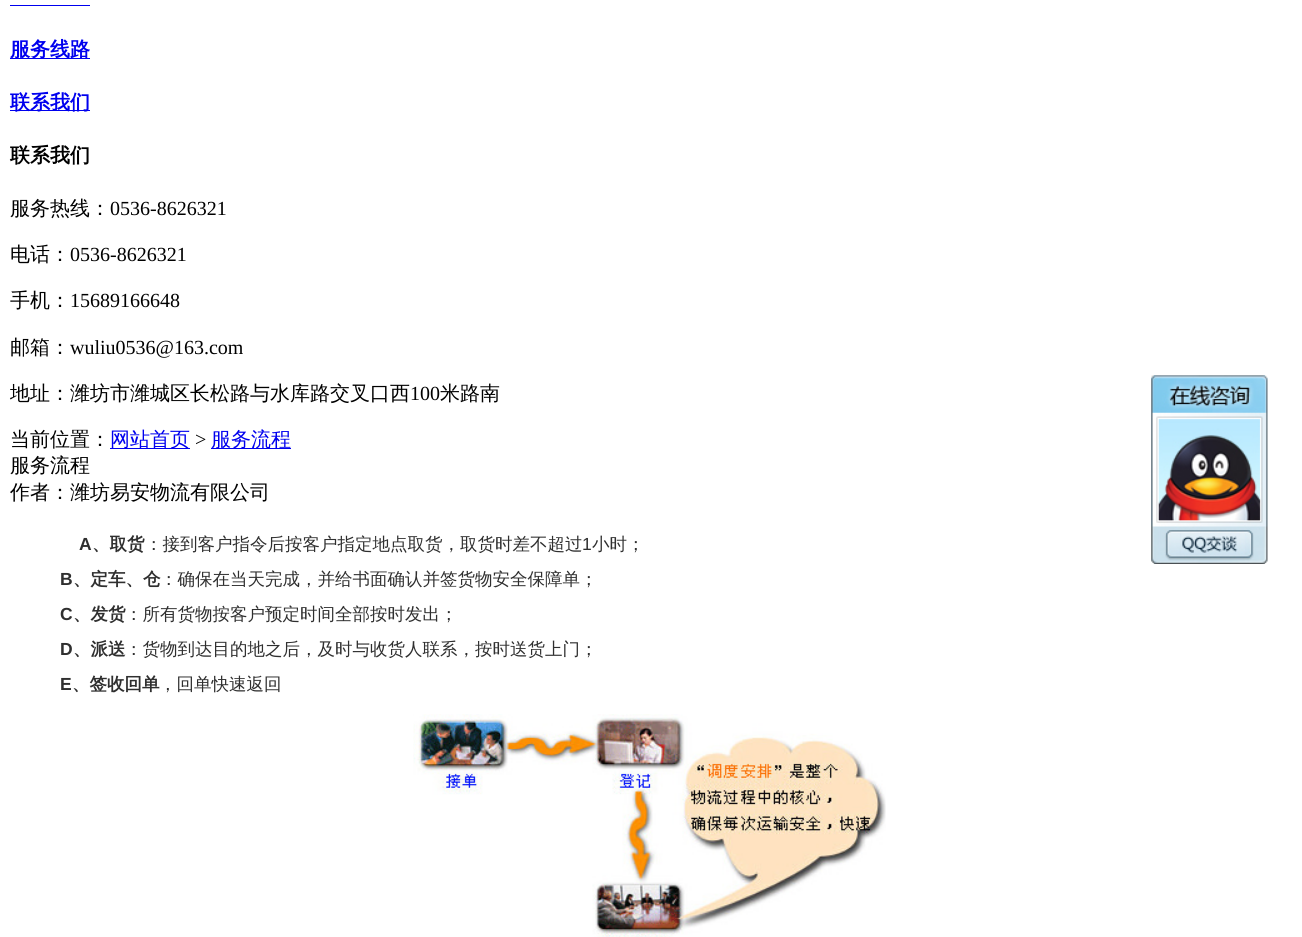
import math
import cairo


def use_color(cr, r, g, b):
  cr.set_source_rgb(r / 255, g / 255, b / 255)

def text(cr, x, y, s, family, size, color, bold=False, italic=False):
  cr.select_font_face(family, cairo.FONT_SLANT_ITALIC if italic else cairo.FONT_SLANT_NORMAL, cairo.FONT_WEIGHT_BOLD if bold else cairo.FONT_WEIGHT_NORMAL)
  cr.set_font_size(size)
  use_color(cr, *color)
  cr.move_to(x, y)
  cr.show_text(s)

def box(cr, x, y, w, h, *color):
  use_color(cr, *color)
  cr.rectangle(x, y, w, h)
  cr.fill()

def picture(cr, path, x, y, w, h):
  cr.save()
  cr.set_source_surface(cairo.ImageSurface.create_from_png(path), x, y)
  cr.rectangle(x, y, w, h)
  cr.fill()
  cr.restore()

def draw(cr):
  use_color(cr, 255, 255, 255)
  cr.paint()
  box(cr, 10, 5, 80, 1, 0, 0, 238)
  box(cr, 10, 58, 80, 1, 0, 0, 238)
  box(cr, 10, 110, 80, 1, 0, 0, 238)
  box(cr, 110, 448, 80, 1, 0, 0, 238)
  box(cr, 211, 448, 80, 1, 0, 0, 238)
  picture(cr, "img_01.png", 413, 714, 473, 223)
  picture(cr, "img_02.png", 1151, 375, 117, 189)
  text(cr, 10, 56, "服务线路", "WenQuanYi Zen Hei", 20, (0, 0, 238), bold=True)
  text(cr, 10, 109, "联系我们", "WenQuanYi Zen Hei", 20, (0, 0, 238), bold=True)
  text(cr, 10, 162, "联系我们", "WenQuanYi Zen Hei", 20, (0, 0, 0), bold=True)
  text(cr, 10, 215, "服务热线：", "WenQuanYi Zen Hei Medium", 20, (0, 0, 0))
  text(cr, 110, 215, "0536-8626321", "Liberation Serif", 20, (0, 0, 0))
  text(cr, 10, 261, "电话：", "WenQuanYi Zen Hei Medium", 20, (0, 0, 0))
  text(cr, 70, 261, "0536-8626321", "Liberation Serif", 20, (0, 0, 0))
  text(cr, 10, 307, "手机：", "WenQuanYi Zen Hei Medium", 20, (0, 0, 0))
  text(cr, 70, 307, "15689166648", "Liberation Serif", 20, (0, 0, 0))
  text(cr, 10, 354, "邮箱：", "WenQuanYi Zen Hei Medium", 20, (0, 0, 0))
  text(cr, 70, 354, "wuliu0536@163.com", "Liberation Serif", 20, (0, 0, 0))
  text(cr, 10, 400, "地址：潍坊市潍城区长松路与水库路交叉口西", "WenQuanYi Zen Hei Medium", 20, (0, 0, 0))
  text(cr, 410, 400, "100", "Liberation Serif", 20, (0, 0, 0))
  text(cr, 440, 400, "米路南", "WenQuanYi Zen Hei Medium", 20, (0, 0, 0))
  text(cr, 10, 446, "当前位置：", "WenQuanYi Zen Hei Medium", 20, (0, 0, 0))
  text(cr, 110, 446, "网站首页", "WenQuanYi Zen Hei Medium", 20, (0, 0, 238))
  text(cr, 195, 446, ">", "Liberation Serif", 20, (0, 0, 0))
  text(cr, 211, 446, "服务流程", "WenQuanYi Zen Hei Medium", 20, (0, 0, 238))
  text(cr, 10, 472, "服务流程", "WenQuanYi Zen Hei Medium", 20, (0, 0, 0))
  text(cr, 10, 499, "作者：潍坊易安物流有限公司", "WenQuanYi Zen Hei Medium", 20, (0, 0, 0))
  text(cr, 79, 550, "A", "Liberation Sans", 17.5, (47, 47, 47), bold=True)
  text(cr, 92, 550, "、取货", "WenQuanYi Zen Hei", 17.5, (47, 47, 47), bold=True)
  text(cr, 145, 550, "：接到客户指令后按客户指定地点取货，取货时差不超过", "WenQuanYi Zen Hei Medium", 17.5, (47, 47, 47))
  text(cr, 582, 550, "1", "Liberation Sans", 17.5, (47, 47, 47))
  text(cr, 592, 550, "小时；", "WenQuanYi Zen Hei Medium", 17.5, (47, 47, 47))
  text(cr, 60, 585, "B", "Liberation Sans", 17.5, (47, 47, 47), bold=True)
  text(cr, 73, 585, "、定车、仓", "WenQuanYi Zen Hei", 17.5, (47, 47, 47), bold=True)
  text(cr, 160, 585, "：确保在当天完成，并给书面确认并签货物安全保障单；", "WenQuanYi Zen Hei Medium", 17.5, (47, 47, 47))
  text(cr, 60, 620, "C", "Liberation Sans", 17.5, (47, 47, 47), bold=True)
  text(cr, 73, 620, "、发货", "WenQuanYi Zen Hei", 17.5, (47, 47, 47), bold=True)
  text(cr, 125, 620, "：所有货物按客户预定时间全部按时发出；", "WenQuanYi Zen Hei Medium", 17.5, (47, 47, 47))
  text(cr, 60, 655, "D", "Liberation Sans", 17.5, (47, 47, 47), bold=True)
  text(cr, 73, 655, "、派送", "WenQuanYi Zen Hei", 17.5, (47, 47, 47), bold=True)
  text(cr, 125, 655, "：货物到达目的地之后，及时与收货人联系，按时送货上门；", "WenQuanYi Zen Hei Medium", 17.5, (47, 47, 47))
  text(cr, 60, 690, "E", "Liberation Sans", 17.5, (47, 47, 47), bold=True)
  text(cr, 72, 690, "、签收回单", "WenQuanYi Zen Hei", 17.5, (47, 47, 47), bold=True)
  text(cr, 159, 690, "，回单快速返回", "WenQuanYi Zen Hei Medium", 17.5, (47, 47, 47))


surface = cairo.ImageSurface(cairo.FORMAT_RGB24, 1302, 937)
cr = cairo.Context(surface)
options = cairo.FontOptions()
options.set_hint_metrics(cairo.HINT_METRICS_OFF)
options.set_hint_style(cairo.HINT_STYLE_NONE)
cr.set_font_options(options)
cr.set_miter_limit(4)
draw(cr)
surface.write_to_png("out.png")
